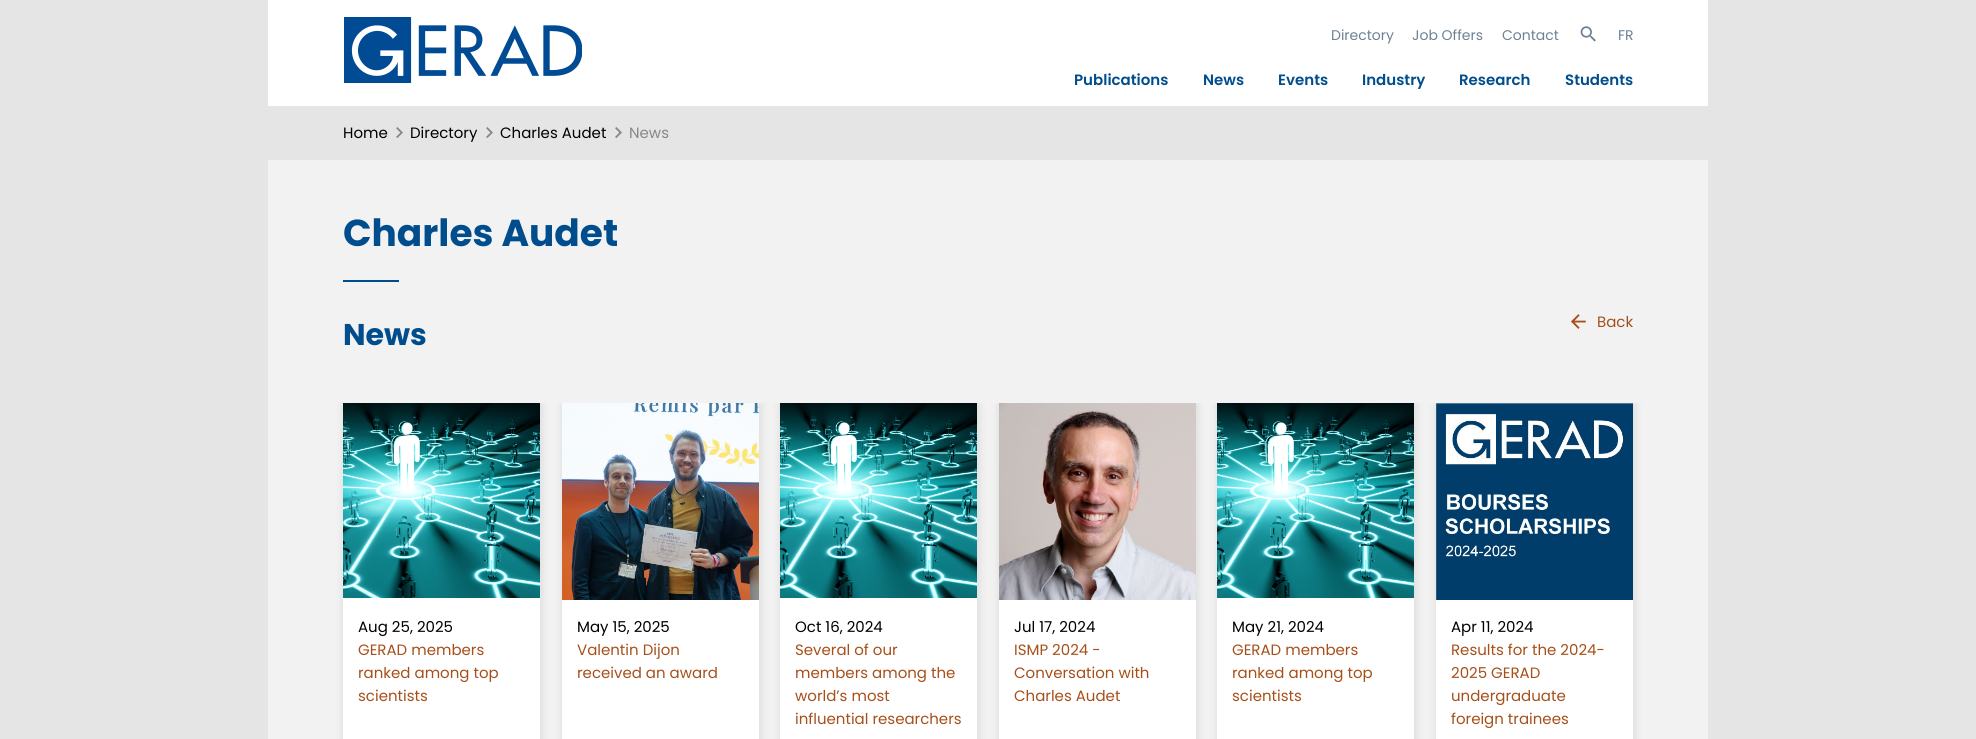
import math
import cairo


def use_color(cr, r, g, b):
  cr.set_source_rgb(r / 255, g / 255, b / 255)

def text(cr, x, y, s, family, size, color, bold=False, italic=False):
  cr.select_font_face(family, cairo.FONT_SLANT_ITALIC if italic else cairo.FONT_SLANT_NORMAL, cairo.FONT_WEIGHT_BOLD if bold else cairo.FONT_WEIGHT_NORMAL)
  cr.set_font_size(size)
  use_color(cr, *color)
  cr.move_to(x, y)
  cr.show_text(s)

def box(cr, x, y, w, h, *color):
  use_color(cr, *color)
  cr.rectangle(x, y, w, h)
  cr.fill()

def round_rect(cr, x, y, w, h, r):
  cr.new_sub_path()
  for i, (u, v) in enumerate([(x + w - r, y + h - r), (x + r, y + h - r), (x + r, y + r), (x + w - r, y + r)]):
    cr.arc(u, v, r, i * math.pi / 2, (i + 1) * math.pi / 2)
  cr.close_path()

def shadow(cr, x, y, w, h, r, blur, alpha):
  cr.push_group_with_content(cairo.CONTENT_ALPHA)
  cr.set_operator(cairo.OPERATOR_SOURCE)
  for i in range(15, -16, -2):
    e = blur * i / 6
    if min(w, h) + 2 * e > 0:
      cr.set_source_rgba(0, 0, 0, alpha * math.erfc((i - 1) / 8.5) / 2)
      round_rect(cr, x - e, y - e, w + 2 * e, h + 2 * e, max(0, min(r + e + blur * .6, min(w, h) / 2 + e)))
      cr.fill()
  cr.mask(cr.pop_group())

def picture(cr, path, x, y, w, h):
  cr.save()
  cr.set_source_surface(cairo.ImageSurface.create_from_png(path), x, y)
  cr.rectangle(x, y, w, h)
  cr.fill()
  cr.restore()

def draw(cr):
  use_color(cr, 229, 229, 229)
  cr.paint()
  box(cr, 268, 0, 1440, 106, 255, 255, 255)
  picture(cr, "img_01.png", 344, 17, 238, 66)
  picture(cr, "img_02.png", 1580, 26, 16, 16)
  box(cr, 268, 160, 1440, 579, 242, 242, 242)
  picture(cr, "img_03.png", 396, 127, 7, 11)
  picture(cr, "img_03.png", 486, 127, 7, 11)
  picture(cr, "img_03.png", 615, 127, 7, 11)
  box(cr, 343, 280, 56, 2, 0, 77, 141)
  picture(cr, "img_04.png", 1571, 314, 15, 15)
  cr.save()
  cr.rectangle(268, 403, 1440, 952)
  cr.clip()
  use_color(cr, 0, 0, 0)
  shadow(cr, 344, 404, 197, 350, 0, 5, 0.12)
  cr.restore()
  box(cr, 343, 598, 197, 141, 255, 255, 255)
  picture(cr, "img_05.png", 343, 403, 197, 195)
  cr.save()
  cr.rectangle(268, 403, 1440, 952)
  cr.clip()
  use_color(cr, 0, 0, 0)
  shadow(cr, 563, 404, 197, 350, 0, 5, 0.12)
  cr.restore()
  box(cr, 562, 600, 197, 139, 255, 255, 255)
  picture(cr, "img_06.png", 562, 403, 197, 197)
  cr.save()
  cr.rectangle(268, 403, 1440, 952)
  cr.clip()
  use_color(cr, 0, 0, 0)
  shadow(cr, 781, 404, 197, 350, 0, 5, 0.12)
  cr.restore()
  box(cr, 780, 598, 197, 141, 255, 255, 255)
  picture(cr, "img_05.png", 780, 403, 197, 195)
  cr.save()
  cr.rectangle(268, 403, 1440, 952)
  cr.clip()
  use_color(cr, 0, 0, 0)
  shadow(cr, 1000, 404, 197, 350, 0, 5, 0.12)
  cr.restore()
  box(cr, 999, 600, 197, 139, 255, 255, 255)
  picture(cr, "img_07.png", 999, 403, 197, 197)
  cr.save()
  cr.rectangle(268, 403, 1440, 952)
  cr.clip()
  use_color(cr, 0, 0, 0)
  shadow(cr, 1218, 404, 197, 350, 0, 5, 0.12)
  cr.restore()
  box(cr, 1217, 598, 197, 141, 255, 255, 255)
  picture(cr, "img_05.png", 1217, 403, 197, 195)
  cr.save()
  cr.rectangle(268, 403, 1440, 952)
  cr.clip()
  use_color(cr, 0, 0, 0)
  shadow(cr, 1437, 404, 197, 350, 0, 5, 0.12)
  cr.restore()
  box(cr, 1436, 600, 197, 139, 255, 255, 255)
  picture(cr, "img_08.png", 1436, 403, 197, 197)
  text(cr, 1331, 40, "Directory", "Poppins", 14, (108, 129, 147))
  text(cr, 1412, 40, "Job Offers", "Poppins", 14, (108, 129, 147))
  text(cr, 1502, 40, "Contact", "Poppins", 14, (108, 129, 147))
  text(cr, 1618, 40, "FR", "Poppins", 14, (108, 129, 147))
  text(cr, 1074, 85, "Publications", "Poppins SemiBold", 15, (0, 77, 141))
  text(cr, 1203, 85, "News", "Poppins SemiBold", 15, (0, 77, 141))
  text(cr, 1278, 85, "Events", "Poppins SemiBold", 15, (0, 77, 141))
  text(cr, 1362, 85, "Industry", "Poppins SemiBold", 15, (0, 77, 141))
  text(cr, 1459, 85, "Research", "Poppins SemiBold", 15, (0, 77, 141))
  text(cr, 1565, 85, "Students", "Poppins SemiBold", 15, (0, 77, 141))
  text(cr, 343, 138, "Home", "Poppins", 15, (0, 0, 0))
  text(cr, 410, 138, "Directory", "Poppins", 15, (0, 0, 0))
  text(cr, 500, 138, "Charles Audet", "Poppins", 15, (0, 0, 0))
  text(cr, 629, 138, "News", "Poppins", 15, (136, 136, 136))
  text(cr, 343, 246, "Charles Audet", "Poppins", 37.5, (0, 77, 141), bold=True)
  text(cr, 1597, 327, "Back", "Poppins", 15, (166, 79, 25))
  text(cr, 343, 345, "News", "Poppins", 30, (0, 77, 141), bold=True)
  text(cr, 358, 632, "Aug 25, 2025", "Poppins", 15, (0, 0, 0))
  text(cr, 358, 655, "GERAD members", "Poppins", 15, (166, 79, 25))
  text(cr, 358, 678, "ranked among top", "Poppins", 15, (166, 79, 25))
  text(cr, 358, 701, "scientists", "Poppins", 15, (166, 79, 25))
  text(cr, 577, 632, "May 15, 2025", "Poppins", 15, (0, 0, 0))
  text(cr, 577, 655, "Valentin Dijon", "Poppins", 15, (166, 79, 25))
  text(cr, 577, 678, "received an award", "Poppins", 15, (166, 79, 25))
  text(cr, 795, 632, "Oct 16, 2024", "Poppins", 15, (0, 0, 0))
  text(cr, 795, 655, "Several of our", "Poppins", 15, (166, 79, 25))
  text(cr, 795, 678, "members among the", "Poppins", 15, (166, 79, 25))
  text(cr, 795, 701, "world’s most", "Poppins", 15, (166, 79, 25))
  text(cr, 795, 724, "influential researchers", "Poppins", 15, (166, 79, 25))
  text(cr, 1014, 632, "Jul 17, 2024", "Poppins", 15, (0, 0, 0))
  text(cr, 1014, 655, "ISMP 2024 -", "Poppins", 15, (166, 79, 25))
  text(cr, 1014, 678, "Conversation with", "Poppins", 15, (166, 79, 25))
  text(cr, 1014, 701, "Charles Audet", "Poppins", 15, (166, 79, 25))
  text(cr, 1232, 632, "May 21, 2024", "Poppins", 15, (0, 0, 0))
  text(cr, 1232, 655, "GERAD members", "Poppins", 15, (166, 79, 25))
  text(cr, 1232, 678, "ranked among top", "Poppins", 15, (166, 79, 25))
  text(cr, 1232, 701, "scientists", "Poppins", 15, (166, 79, 25))
  text(cr, 1451, 632, "Apr 11, 2024", "Poppins", 15, (0, 0, 0))
  text(cr, 1451, 655, "Results for the 2024-", "Poppins", 15, (166, 79, 25))
  text(cr, 1451, 678, "2025 GERAD", "Poppins", 15, (166, 79, 25))
  text(cr, 1451, 701, "undergraduate", "Poppins", 15, (166, 79, 25))
  text(cr, 1451, 724, "foreign trainees", "Poppins", 15, (166, 79, 25))


surface = cairo.ImageSurface(cairo.FORMAT_RGB24, 1976, 739)
cr = cairo.Context(surface)
options = cairo.FontOptions()
options.set_hint_metrics(cairo.HINT_METRICS_OFF)
options.set_hint_style(cairo.HINT_STYLE_NONE)
cr.set_font_options(options)
cr.set_miter_limit(4)
draw(cr)
surface.write_to_png("out.png")
